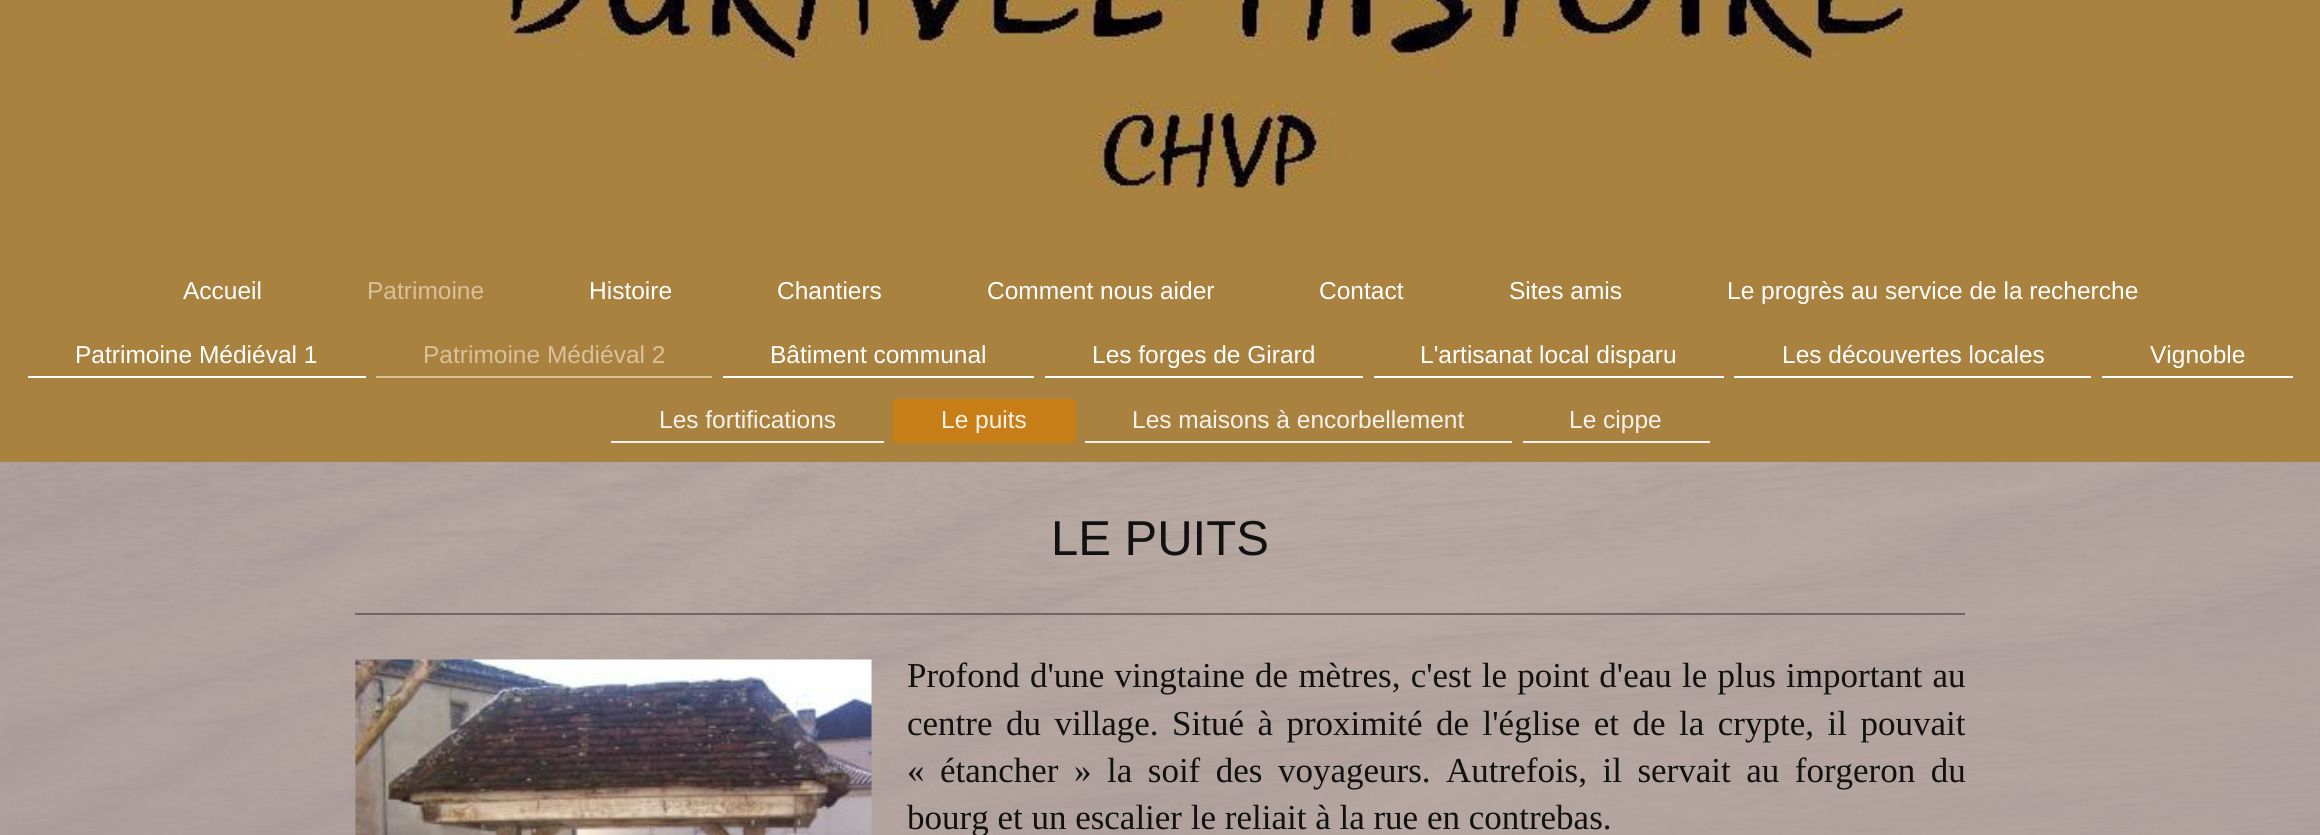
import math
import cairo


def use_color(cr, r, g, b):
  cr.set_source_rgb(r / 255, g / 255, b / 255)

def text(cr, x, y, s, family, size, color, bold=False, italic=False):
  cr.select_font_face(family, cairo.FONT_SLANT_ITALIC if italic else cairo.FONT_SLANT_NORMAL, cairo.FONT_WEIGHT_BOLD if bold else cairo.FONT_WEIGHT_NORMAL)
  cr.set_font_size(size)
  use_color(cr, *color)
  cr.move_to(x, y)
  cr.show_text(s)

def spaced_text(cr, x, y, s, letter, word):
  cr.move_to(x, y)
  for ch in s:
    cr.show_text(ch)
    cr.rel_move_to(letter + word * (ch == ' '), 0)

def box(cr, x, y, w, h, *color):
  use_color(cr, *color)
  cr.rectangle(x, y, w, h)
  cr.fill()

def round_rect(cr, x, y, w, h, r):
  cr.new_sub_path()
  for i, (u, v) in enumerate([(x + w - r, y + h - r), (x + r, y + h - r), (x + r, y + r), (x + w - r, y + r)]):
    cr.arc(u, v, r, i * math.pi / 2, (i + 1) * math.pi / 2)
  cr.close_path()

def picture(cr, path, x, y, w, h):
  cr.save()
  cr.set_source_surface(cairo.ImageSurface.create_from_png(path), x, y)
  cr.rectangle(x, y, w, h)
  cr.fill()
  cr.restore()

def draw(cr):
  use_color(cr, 255, 255, 255)
  cr.paint()
  picture(cr, "img_01.png", 0, 462, 2320, 373)
  box(cr, 0, 0, 2320, 462, 170, 130, 64)
  picture(cr, "img_02.png", 505, 0, 1409, 189)
  box(cr, 28, 376, 338, 2, 255, 255, 255)
  box(cr, 376, 376, 336, 2, 216, 193, 155)
  box(cr, 723, 376, 311, 2, 255, 255, 255)
  box(cr, 1045, 376, 318, 2, 255, 255, 255)
  box(cr, 1374, 376, 350, 2, 255, 255, 255)
  box(cr, 1734, 376, 357, 2, 255, 255, 255)
  box(cr, 2102, 376, 191, 2, 255, 255, 255)
  box(cr, 611, 441, 273, 2, 247, 243, 236)
  use_color(cr, 200, 126, 22)
  round_rect(cr, 893, 399, 183, 44, 4)
  cr.fill()
  box(cr, 894, 441, 181, 2, 200, 126, 22)
  box(cr, 1085, 441, 427, 2, 247, 243, 236)
  box(cr, 1523, 441, 187, 2, 247, 243, 236)
  cr.set_source_rgba(0.71, 0.667, 0.667, 0.9)
  cr.rectangle(0, 462, 2320, 373)
  cr.fill()
  box(cr, 355, 613, 1610, 2, 113, 100, 100)
  picture(cr, "img_03.png", 355, 659, 517, 176)
  text(cr, 183, 299, "Accueil", "Liberation Sans", 24.5, (255, 255, 255))
  text(cr, 367, 299, "Patrimoine", "Liberation Sans", 24.5, (216, 193, 155))
  text(cr, 589, 299, "Histoire", "Liberation Sans", 24.5, (255, 255, 255))
  text(cr, 777, 299, "Chantiers", "Liberation Sans", 24.5, (255, 255, 255))
  text(cr, 987, 299, "Comment nous aider", "Liberation Sans", 24.5, (255, 255, 255))
  text(cr, 1319, 299, "Contact", "Liberation Sans", 24.5, (255, 255, 255))
  text(cr, 1509, 299, "Sites amis", "Liberation Sans", 24.5, (255, 255, 255))
  text(cr, 1727, 299, "Le progrès au service de la recherche", "Liberation Sans", 24.5, (255, 255, 255))
  text(cr, 75, 363, "Patrimoine Médiéval 1", "Liberation Sans", 24.5, (255, 255, 255))
  text(cr, 423, 363, "Patrimoine Médiéval 2", "Liberation Sans", 24.5, (216, 193, 155))
  text(cr, 770, 363, "Bâtiment communal", "Liberation Sans", 24.5, (255, 255, 255))
  text(cr, 1092, 363, "Les forges de Girard", "Liberation Sans", 24.5, (255, 255, 255))
  text(cr, 1420, 363, "L'artisanat local disparu", "Liberation Sans", 24.5, (255, 255, 255))
  text(cr, 1782, 363, "Les découvertes locales", "Liberation Sans", 24.5, (255, 255, 255))
  text(cr, 2150, 363, "Vignoble", "Liberation Sans", 24.5, (255, 255, 255))
  text(cr, 659, 428, "Les fortifications", "Liberation Sans", 24.5, (247, 243, 236))
  text(cr, 941, 428, "Le puits", "Liberation Sans", 24.5, (247, 243, 236))
  text(cr, 1132, 428, "Les maisons à encorbellement", "Liberation Sans", 24.5, (247, 243, 236))
  text(cr, 1569, 428, "Le cippe", "Liberation Sans", 24.5, (247, 243, 236))
  text(cr, 1051, 555, "LE PUITS", "Liberation Sans", 49, (18, 17, 17))
  cr.select_font_face("Liberation Serif")
  cr.set_font_size(35)
  spaced_text(cr, 907, 687, "Profond d'une vingtaine de mètres, c'est le point d'eau le plus important au", 0, 1.5)
  spaced_text(cr, 907, 735, "centre du village. Situé à proximité de l'église et de la crypte, il pouvait", 0, 4.75)
  spaced_text(cr, 907, 782, "« étancher » la soif des voyageurs. Autrefois, il servait au forgeron du", 0, 6.75)
  text(cr, 907, 829, "bourg et un escalier le reliait à la rue en contrebas.", "Liberation Serif", 35, (18, 17, 17))


surface = cairo.ImageSurface(cairo.FORMAT_RGB24, 2320, 835)
cr = cairo.Context(surface)
options = cairo.FontOptions()
options.set_hint_metrics(cairo.HINT_METRICS_OFF)
options.set_hint_style(cairo.HINT_STYLE_NONE)
cr.set_font_options(options)
cr.set_miter_limit(4)
draw(cr)
surface.write_to_png("out.png")
